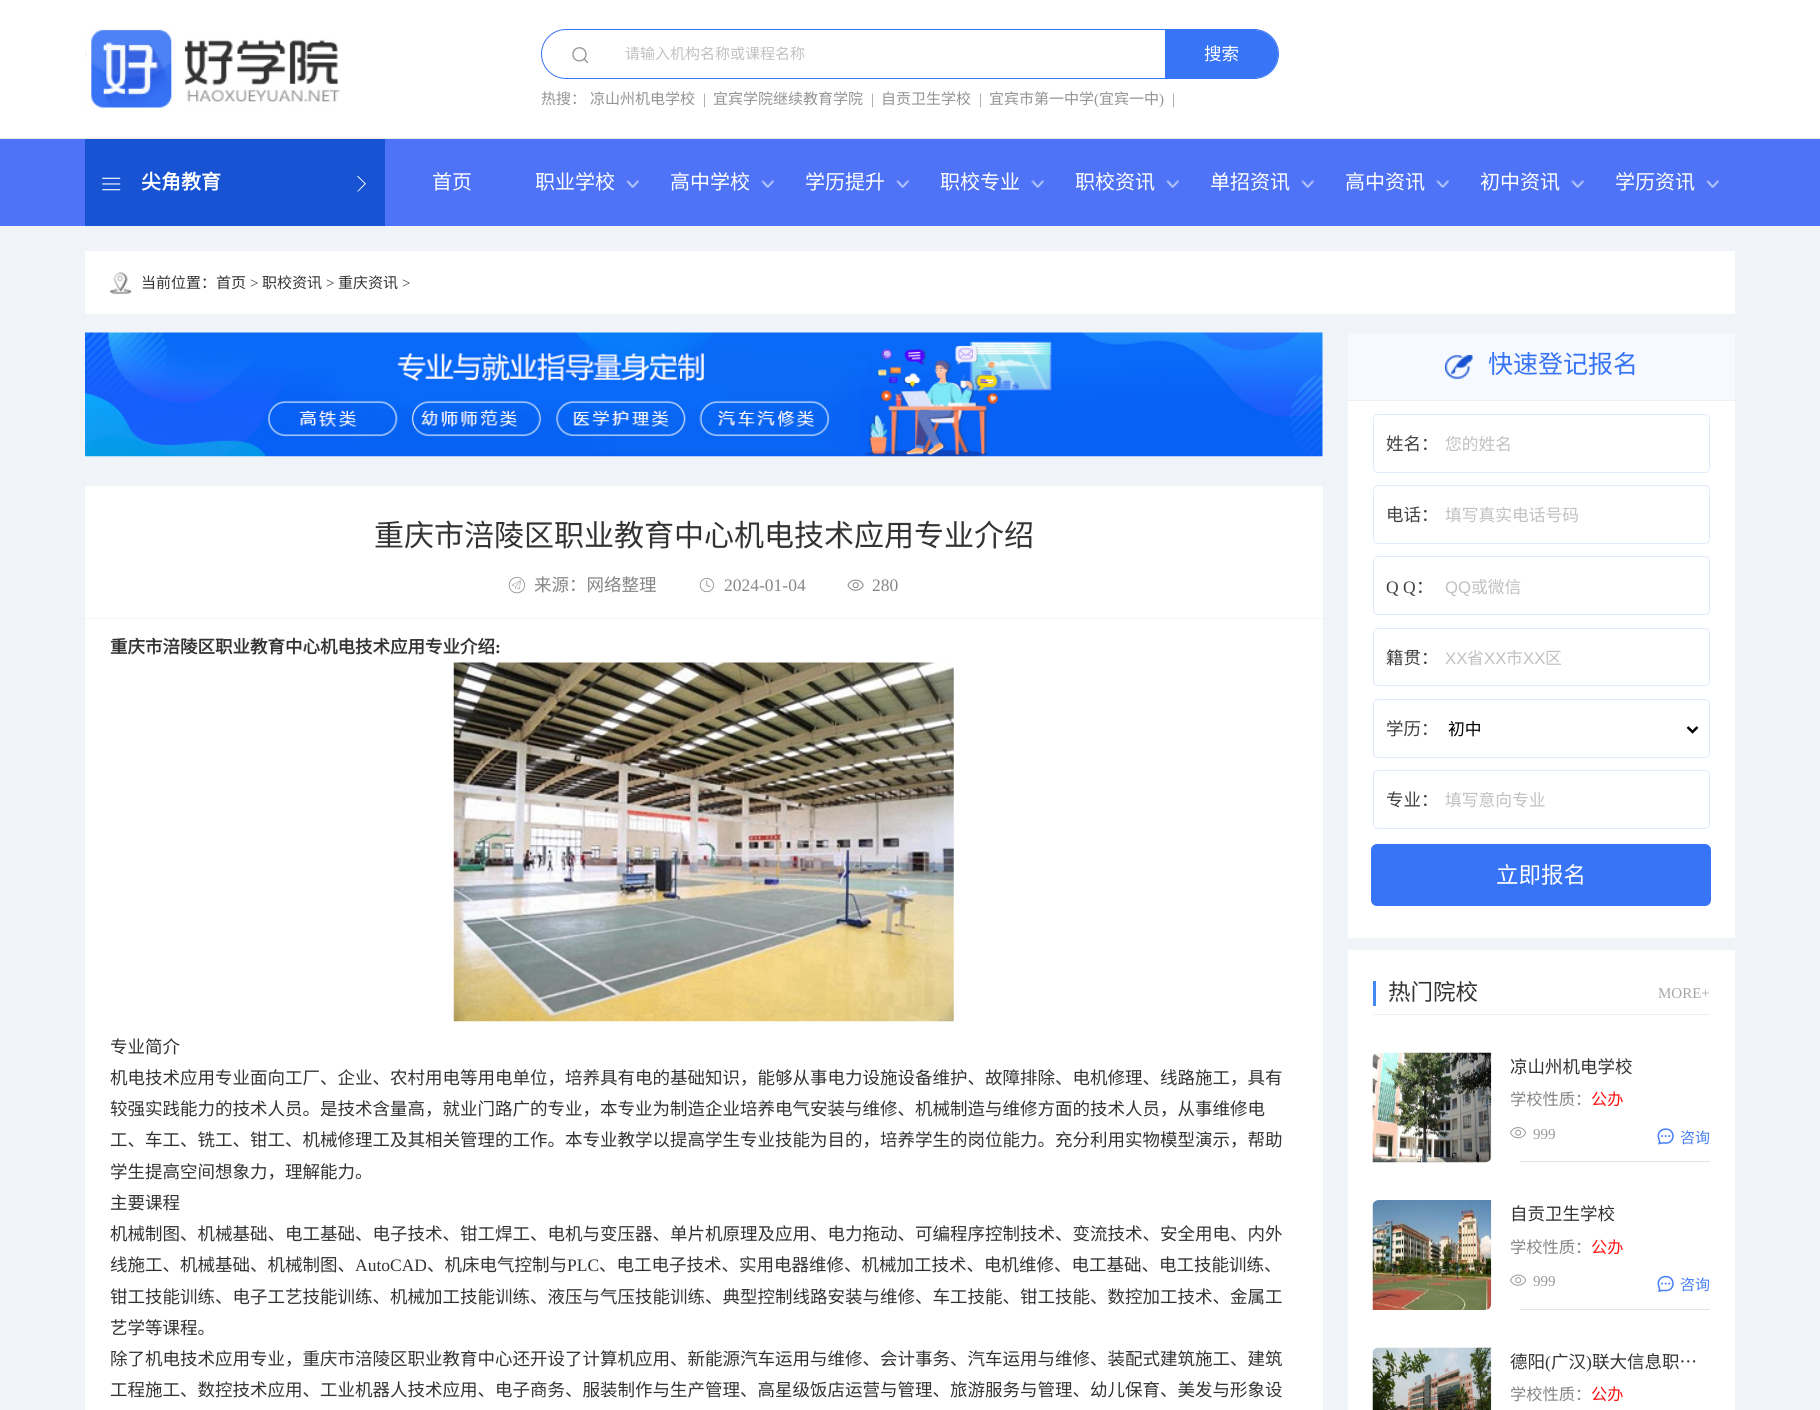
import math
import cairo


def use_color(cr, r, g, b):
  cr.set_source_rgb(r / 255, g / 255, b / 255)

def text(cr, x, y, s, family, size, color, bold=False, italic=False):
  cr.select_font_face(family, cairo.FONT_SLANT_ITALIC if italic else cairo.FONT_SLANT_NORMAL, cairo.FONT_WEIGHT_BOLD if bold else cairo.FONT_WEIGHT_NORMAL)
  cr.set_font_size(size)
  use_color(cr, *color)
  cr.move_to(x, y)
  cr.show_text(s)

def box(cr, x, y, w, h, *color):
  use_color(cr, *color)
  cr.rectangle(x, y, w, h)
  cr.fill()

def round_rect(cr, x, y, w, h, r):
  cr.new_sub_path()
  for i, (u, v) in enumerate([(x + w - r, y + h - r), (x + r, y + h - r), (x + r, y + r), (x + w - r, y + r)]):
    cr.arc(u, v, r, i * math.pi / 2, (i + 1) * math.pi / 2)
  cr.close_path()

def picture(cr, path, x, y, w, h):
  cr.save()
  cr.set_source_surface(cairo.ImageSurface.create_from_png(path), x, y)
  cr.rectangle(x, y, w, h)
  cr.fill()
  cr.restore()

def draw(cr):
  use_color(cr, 240, 244, 249)
  cr.paint()
  box(cr, 0, 0, 1820, 138, 255, 255, 255)
  box(cr, 0, 138, 1820, 1, 234, 234, 234)
  picture(cr, "img_01.png", 85, 29, 255, 79)
  round_rect(cr, 541.5, 29.5, 737, 49, 24.5)
  use_color(cr, 56, 116, 246)
  cr.set_line_width(1)
  cr.stroke()
  picture(cr, "img_02.png", 572, 47, 17, 17)
  cr.new_path()
  cr.move_to(1165, 30)
  cr.line_to(1254, 30)
  cr.curve_to(1267.5, 30, 1278, 40.5, 1278, 54)
  cr.curve_to(1278, 67.5, 1267.5, 78, 1254, 78)
  cr.line_to(1165, 78)
  cr.close_path()
  cr.fill()
  box(cr, 0, 139, 1820, 87, 78, 115, 247)
  box(cr, 85, 139, 300, 87, 23, 83, 211)
  picture(cr, "img_03.png", 102, 177, 19, 14)
  picture(cr, "img_04.png", 357, 175, 9, 17)
  picture(cr, "img_05.png", 626, 180, 13, 8)
  picture(cr, "img_05.png", 761, 180, 13, 8)
  picture(cr, "img_05.png", 896, 180, 13, 8)
  picture(cr, "img_05.png", 1031, 180, 13, 8)
  picture(cr, "img_05.png", 1166, 180, 13, 8)
  picture(cr, "img_05.png", 1301, 180, 13, 8)
  picture(cr, "img_05.png", 1436, 180, 13, 8)
  picture(cr, "img_05.png", 1571, 180, 13, 8)
  picture(cr, "img_05.png", 1706, 180, 13, 8)
  box(cr, 85, 251, 1650, 63, 255, 255, 255)
  picture(cr, "img_06.png", 110, 272, 22, 22)
  picture(cr, "img_07.png", 85, 332, 1238, 125)
  box(cr, 85, 486, 1238, 924, 255, 255, 255)
  box(cr, 85, 618, 1238, 1, 244, 244, 244)
  picture(cr, "img_08.png", 508, 577, 17, 17)
  picture(cr, "img_09.png", 699, 578, 15, 15)
  picture(cr, "img_10.png", 847, 579, 17, 12)
  picture(cr, "img_11.png", 453, 662, 501, 360)
  box(cr, 1348, 401, 387, 537, 255, 255, 255)
  box(cr, 1348, 333, 387, 67, 246, 249, 255)
  box(cr, 1348, 400, 387, 1, 240, 240, 240)
  picture(cr, "img_12.png", 1445, 355, 28, 24)
  round_rect(cr, 1373.5, 414.5, 336, 58, 4.5)
  use_color(cr, 224, 234, 255)
  cr.stroke()
  round_rect(cr, 1373.5, 485.5, 336, 58, 4.5)
  cr.stroke()
  round_rect(cr, 1373.5, 556.5, 336, 58, 4.5)
  cr.stroke()
  round_rect(cr, 1373.5, 628.5, 336, 57, 4.5)
  cr.stroke()
  round_rect(cr, 1373.5, 699.5, 336, 58, 4.5)
  cr.stroke()
  cr.new_path()
  cr.move_to(1687.5, 727)
  cr.line_to(1692.5, 732)
  cr.line_to(1697.5, 727)
  use_color(cr, 0, 0, 0)
  cr.set_line_width(2.5)
  cr.stroke()
  round_rect(cr, 1373.5, 770.5, 336, 58, 4.5)
  use_color(cr, 224, 234, 255)
  cr.set_line_width(1)
  cr.stroke()
  use_color(cr, 56, 116, 246)
  round_rect(cr, 1371, 844, 340, 62, 6)
  cr.fill()
  box(cr, 1348, 950, 387, 460, 255, 255, 255)
  box(cr, 1373, 1014, 337, 1, 239, 239, 240)
  box(cr, 1373, 981, 3, 25, 70, 136, 241)
  picture(cr, "img_13.png", 1372, 1052, 120, 111)
  picture(cr, "img_14.png", 1510, 1127, 17, 12)
  picture(cr, "img_15.png", 1657, 1128, 17, 17)
  box(cr, 1520, 1161, 190, 1, 228, 228, 228)
  picture(cr, "img_16.png", 1372, 1200, 120, 110)
  picture(cr, "img_17.png", 1510, 1274, 17, 12)
  picture(cr, "img_18.png", 1657, 1275, 17, 17)
  box(cr, 1520, 1309, 190, 1, 228, 228, 228)
  picture(cr, "img_19.png", 1372, 1347, 120, 63)
  text(cr, 625, 59, "请输入机构名称或课程名称", "Noto Sans CJK SC", 15, (193, 193, 193))
  text(cr, 1204, 60, "搜索", "Noto Sans CJK SC", 17.5, (255, 255, 255))
  text(cr, 541, 104, "热搜：", "Noto Sans CJK SC", 15, (147, 147, 147))
  text(cr, 590, 104, "凉山州机电学校", "Noto Sans CJK SC", 15, (147, 147, 147))
  text(cr, 703, 104, "|", "Liberation Serif", 15, (147, 147, 147))
  text(cr, 713, 104, "宜宾学院继续教育学院", "Noto Sans CJK SC", 15, (147, 147, 147))
  text(cr, 871, 104, "|", "Liberation Serif", 15, (147, 147, 147))
  text(cr, 881, 104, "自贡卫生学校", "Noto Sans CJK SC", 15, (147, 147, 147))
  text(cr, 979, 104, "|", "Liberation Serif", 15, (147, 147, 147))
  text(cr, 989, 104, "宜宾市第一中学", "Noto Sans CJK SC", 15, (147, 147, 147))
  text(cr, 1094, 104, "(", "Liberation Serif", 15, (147, 147, 147))
  text(cr, 1099, 104, "宜宾一中", "Noto Sans CJK SC", 15, (147, 147, 147))
  text(cr, 1159, 104, ")", "Liberation Serif", 15, (147, 147, 147))
  text(cr, 1172, 104, "|", "Liberation Serif", 15, (147, 147, 147))
  text(cr, 141, 189, "尖角教育", "Noto Sans CJK SC", 20, (255, 255, 255), bold=True)
  text(cr, 432, 189, "首页", "Noto Sans CJK SC", 20, (255, 255, 255))
  text(cr, 535, 189, "职业学校", "Noto Sans CJK SC", 20, (255, 255, 255))
  text(cr, 670, 189, "高中学校", "Noto Sans CJK SC", 20, (255, 255, 255))
  text(cr, 805, 189, "学历提升", "Noto Sans CJK SC", 20, (255, 255, 255))
  text(cr, 940, 189, "职校专业", "Noto Sans CJK SC", 20, (255, 255, 255))
  text(cr, 1075, 189, "职校资讯", "Noto Sans CJK SC", 20, (255, 255, 255))
  text(cr, 1210, 189, "单招资讯", "Noto Sans CJK SC", 20, (255, 255, 255))
  text(cr, 1345, 189, "高中资讯", "Noto Sans CJK SC", 20, (255, 255, 255))
  text(cr, 1480, 189, "初中资讯", "Noto Sans CJK SC", 20, (255, 255, 255))
  text(cr, 1615, 189, "学历资讯", "Noto Sans CJK SC", 20, (255, 255, 255))
  text(cr, 141, 288, "当前位置：首页", "Noto Sans CJK SC", 15, (51, 51, 51))
  text(cr, 250, 288, ">", "Liberation Serif", 15, (51, 51, 51))
  text(cr, 262, 288, "职校资讯", "Noto Sans CJK SC", 15, (51, 51, 51))
  text(cr, 326, 288, ">", "Liberation Serif", 15, (51, 51, 51))
  text(cr, 338, 288, "重庆资讯", "Noto Sans CJK SC", 15, (51, 51, 51))
  text(cr, 402, 288, ">", "Liberation Serif", 15, (51, 51, 51))
  text(cr, 374, 546, "重庆市涪陵区职业教育中心机电技术应用专业介绍", "Noto Sans CJK SC", 30, (51, 51, 51))
  text(cr, 534, 591, "来源：网络整理", "Noto Sans CJK SC", 17.5, (134, 134, 134))
  text(cr, 724, 591, "2024-01-04", "Liberation Serif", 17.5, (134, 134, 134))
  text(cr, 872, 591, "280", "Liberation Serif", 17.5, (134, 134, 134))
  text(cr, 110, 653, "重庆市涪陵区职业教育中心机电技术应用专业介绍", "Noto Sans CJK SC", 17.5, (51, 51, 51), bold=True)
  text(cr, 495, 653, ":", "Liberation Serif", 17.5, (51, 51, 51), bold=True)
  text(cr, 110, 1053, "专业简介", "Noto Sans CJK SC", 17.5, (51, 51, 51))
  text(cr, 110, 1084, "机电技术应用专业面向工厂、企业、农村用电等用电单位，培养具有电的基础知识，能够从事电力设施设备维护、故障排除、电机修理、线路施工，具有", "Noto Sans CJK SC", 17.5, (51, 51, 51))
  text(cr, 110, 1115, "较强实践能力的技术人员。是技术含量高，就业门路广的专业，本专业为制造企业培养电气安装与维修、机械制造与维修方面的技术人员，从事维修电", "Noto Sans CJK SC", 17.5, (51, 51, 51))
  text(cr, 110, 1146, "工、车工、铣工、钳工、机械修理工及其相关管理的工作。本专业教学以提高学生专业技能为目的，培养学生的岗位能力。充分利用实物模型演示，帮助", "Noto Sans CJK SC", 17.5, (51, 51, 51))
  text(cr, 110, 1178, "学生提高空间想象力，理解能力。", "Noto Sans CJK SC", 17.5, (51, 51, 51))
  text(cr, 110, 1209, "主要课程", "Noto Sans CJK SC", 17.5, (51, 51, 51))
  text(cr, 110, 1240, "机械制图、机械基础、电工基础、电子技术、钳工焊工、电机与变压器、单片机原理及应用、电力拖动、可编程序控制技术、变流技术、安全用电、内外", "Noto Sans CJK SC", 17.5, (51, 51, 51))
  text(cr, 110, 1271, "线施工、机械基础、机械制图、", "Noto Sans CJK SC", 17.5, (51, 51, 51))
  text(cr, 355, 1271, "AutoCAD", "Liberation Serif", 17.5, (51, 51, 51))
  text(cr, 427, 1271, "、机床电气控制与", "Noto Sans CJK SC", 17.5, (51, 51, 51))
  text(cr, 567, 1271, "PLC", "Liberation Serif", 17.5, (51, 51, 51))
  text(cr, 599, 1271, "、电工电子技术、实用电器维修、机械加工技术、电机维修、电工基础、电工技能训练、", "Noto Sans CJK SC", 17.5, (51, 51, 51))
  text(cr, 110, 1303, "钳工技能训练、电子工艺技能训练、机械加工技能训练、液压与气压技能训练、典型控制线路安装与维修、车工技能、钳工技能、数控加工技术、金属工", "Noto Sans CJK SC", 17.5, (51, 51, 51))
  text(cr, 110, 1334, "艺学等课程。", "Noto Sans CJK SC", 17.5, (51, 51, 51))
  text(cr, 110, 1365, "除了机电技术应用专业，重庆市涪陵区职业教育中心还开设了计算机应用、新能源汽车运用与维修、会计事务、汽车运用与维修、装配式建筑施工、建筑", "Noto Sans CJK SC", 17.5, (51, 51, 51))
  text(cr, 110, 1396, "工程施工、数控技术应用、工业机器人技术应用、电子商务、服装制作与生产管理、高星级饭店运营与管理、旅游服务与管理、幼儿保育、美发与形象设", "Noto Sans CJK SC", 17.5, (51, 51, 51))
  text(cr, 1488, 373, "快速登记报名", "Noto Sans CJK SC", 25, (56, 116, 246))
  text(cr, 1386, 450, "姓名：", "Noto Sans CJK SC", 17.5, (65, 65, 65))
  text(cr, 1445, 450, "您的姓名", "Noto Sans CJK SC", 16.75, (193, 193, 193))
  text(cr, 1386, 521, "电话：", "Noto Sans CJK SC", 17.5, (65, 65, 65))
  text(cr, 1445, 521, "填写真实电话号码", "Noto Sans CJK SC", 16.75, (193, 193, 193))
  text(cr, 1386, 593, "Q Q", "Liberation Serif", 17.5, (65, 65, 65))
  text(cr, 1416, 593, "：", "Noto Sans CJK SC", 17.5, (65, 65, 65))
  text(cr, 1445, 593, "QQ", "Liberation Sans", 16.75, (193, 193, 193))
  text(cr, 1471, 593, "或微信", "Noto Sans CJK SC", 16.75, (193, 193, 193))
  text(cr, 1386, 664, "籍贯：", "Noto Sans CJK SC", 17.5, (65, 65, 65))
  text(cr, 1445, 664, "XX", "Liberation Sans", 16.75, (193, 193, 193))
  text(cr, 1467, 664, "省", "Noto Sans CJK SC", 16.75, (193, 193, 193))
  text(cr, 1484, 664, "XX", "Liberation Sans", 16.75, (193, 193, 193))
  text(cr, 1506, 664, "市", "Noto Sans CJK SC", 16.75, (193, 193, 193))
  text(cr, 1523, 664, "XX", "Liberation Sans", 16.75, (193, 193, 193))
  text(cr, 1545, 664, "区", "Noto Sans CJK SC", 16.75, (193, 193, 193))
  text(cr, 1386, 735, "学历：", "Noto Sans CJK SC", 17.5, (65, 65, 65))
  text(cr, 1448, 735, "初中", "Noto Sans CJK SC", 16.75, (0, 0, 0))
  text(cr, 1386, 806, "专业：", "Noto Sans CJK SC", 17.5, (65, 65, 65))
  text(cr, 1445, 806, "填写意向专业", "Noto Sans CJK SC", 16.75, (193, 193, 193))
  text(cr, 1496, 883, "立即报名", "Noto Sans CJK SC", 22.5, (255, 255, 255))
  text(cr, 1388, 1000, "热门院校", "Noto Sans CJK SC", 22.5, (51, 51, 51))
  text(cr, 1658, 998, "MORE+", "Liberation Serif", 15, (167, 167, 167))
  text(cr, 1510, 1073, "凉山州机电学校", "Noto Sans CJK SC", 17.5, (51, 51, 51))
  text(cr, 1510, 1105, "学校性质：", "Noto Sans CJK SC", 16.25, (134, 134, 134))
  text(cr, 1591, 1105, "公办", "Noto Sans CJK SC", 16.25, (255, 16, 16))
  text(cr, 1533, 1139, "999", "Liberation Serif", 15, (154, 154, 154))
  text(cr, 1680, 1143, "咨询", "Noto Sans CJK SC", 15, (72, 127, 247))
  text(cr, 1510, 1220, "自贡卫生学校", "Noto Sans CJK SC", 17.5, (51, 51, 51))
  text(cr, 1510, 1253, "学校性质：", "Noto Sans CJK SC", 16.25, (134, 134, 134))
  text(cr, 1591, 1253, "公办", "Noto Sans CJK SC", 16.25, (255, 16, 16))
  text(cr, 1533, 1286, "999", "Liberation Serif", 15, (154, 154, 154))
  text(cr, 1680, 1290, "咨询", "Noto Sans CJK SC", 15, (72, 127, 247))
  text(cr, 1510, 1368, "德阳", "Noto Sans CJK SC", 17.5, (51, 51, 51))
  text(cr, 1545, 1368, "(", "Liberation Serif", 17.5, (51, 51, 51))
  text(cr, 1551, 1368, "广汉", "Noto Sans CJK SC", 17.5, (51, 51, 51))
  text(cr, 1586, 1368, ")", "Liberation Serif", 17.5, (51, 51, 51))
  text(cr, 1592, 1368, "联大信息职…", "Noto Sans CJK SC", 17.5, (51, 51, 51))
  text(cr, 1510, 1400, "学校性质：", "Noto Sans CJK SC", 16.25, (134, 134, 134))
  text(cr, 1591, 1400, "公办", "Noto Sans CJK SC", 16.25, (255, 16, 16))


surface = cairo.ImageSurface(cairo.FORMAT_RGB24, 1820, 1410)
cr = cairo.Context(surface)
options = cairo.FontOptions()
options.set_hint_metrics(cairo.HINT_METRICS_OFF)
options.set_hint_style(cairo.HINT_STYLE_NONE)
cr.set_font_options(options)
cr.set_miter_limit(4)
draw(cr)
surface.write_to_png("out.png")
